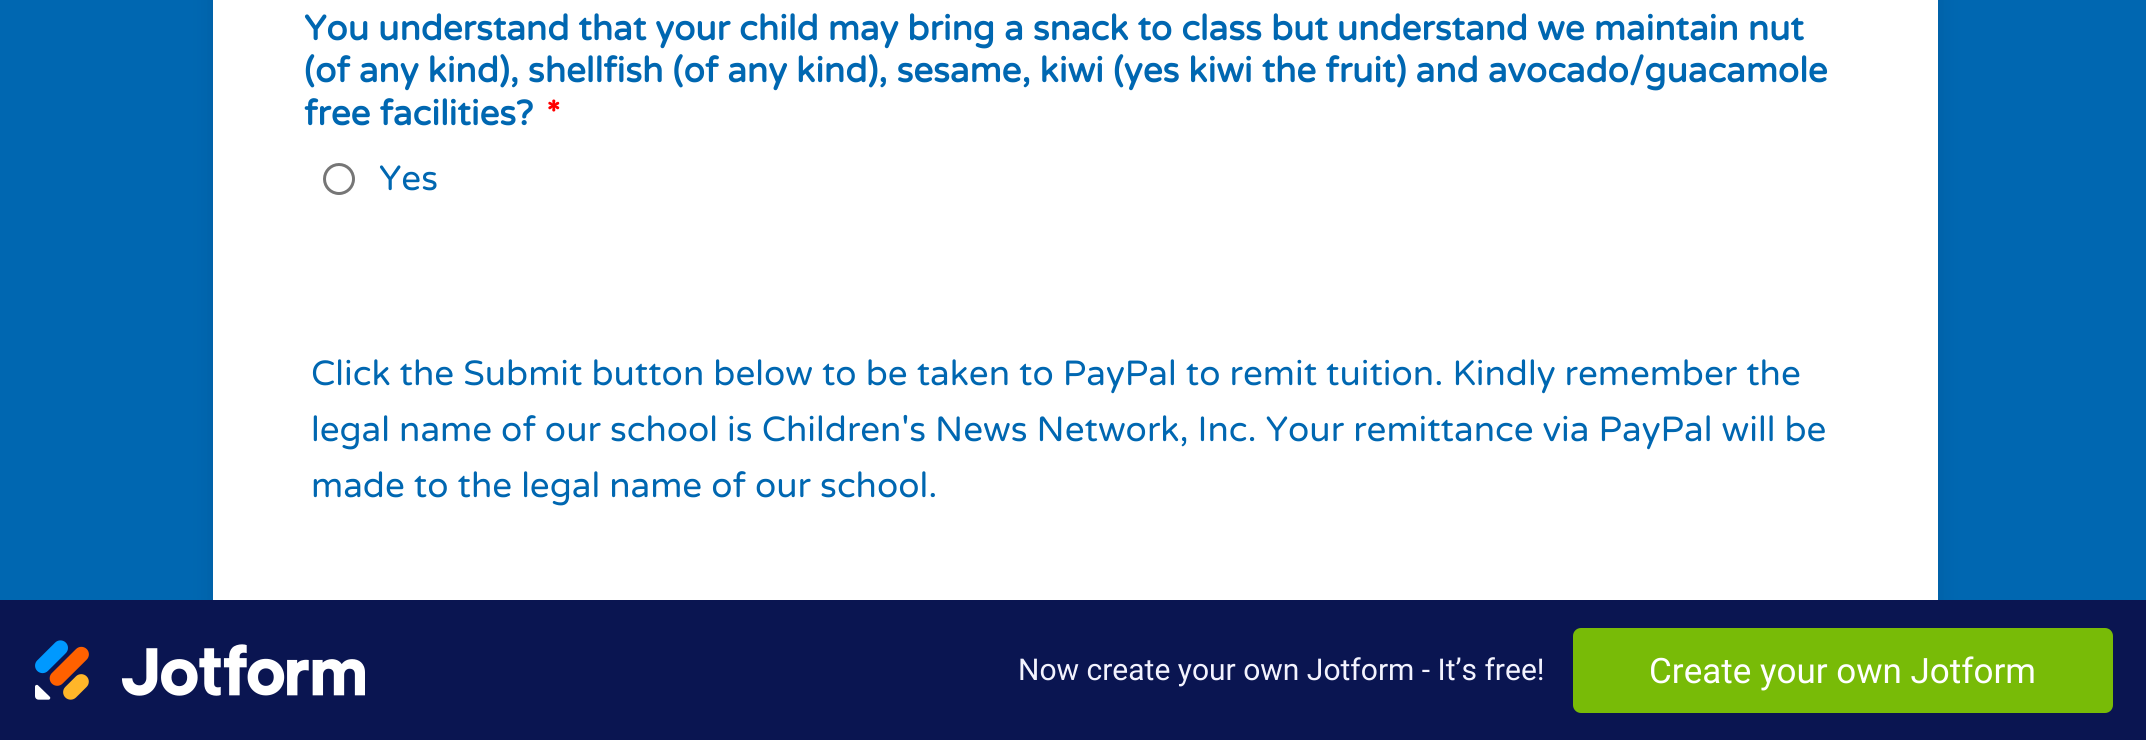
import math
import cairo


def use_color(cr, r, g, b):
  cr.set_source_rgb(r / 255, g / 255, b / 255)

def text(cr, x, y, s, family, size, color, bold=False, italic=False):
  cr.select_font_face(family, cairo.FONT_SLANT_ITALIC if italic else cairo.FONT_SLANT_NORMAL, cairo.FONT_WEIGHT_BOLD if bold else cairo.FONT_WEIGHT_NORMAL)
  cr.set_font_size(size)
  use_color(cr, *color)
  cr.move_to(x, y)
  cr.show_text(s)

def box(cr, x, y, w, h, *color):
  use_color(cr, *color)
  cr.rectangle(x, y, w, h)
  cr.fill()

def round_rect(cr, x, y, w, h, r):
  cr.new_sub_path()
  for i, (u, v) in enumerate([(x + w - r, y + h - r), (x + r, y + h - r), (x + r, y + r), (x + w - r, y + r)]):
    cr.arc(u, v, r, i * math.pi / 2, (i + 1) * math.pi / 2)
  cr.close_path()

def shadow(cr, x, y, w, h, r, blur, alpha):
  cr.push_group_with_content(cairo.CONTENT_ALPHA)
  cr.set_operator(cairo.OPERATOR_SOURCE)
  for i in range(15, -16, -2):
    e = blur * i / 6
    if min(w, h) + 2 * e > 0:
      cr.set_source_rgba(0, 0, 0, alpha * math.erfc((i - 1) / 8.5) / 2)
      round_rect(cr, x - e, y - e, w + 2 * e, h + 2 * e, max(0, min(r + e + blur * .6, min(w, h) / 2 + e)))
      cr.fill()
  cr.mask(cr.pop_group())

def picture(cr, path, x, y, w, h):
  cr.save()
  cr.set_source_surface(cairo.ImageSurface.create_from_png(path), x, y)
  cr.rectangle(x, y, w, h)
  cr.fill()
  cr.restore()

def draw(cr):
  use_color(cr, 0, 103, 177)
  cr.paint()
  use_color(cr, 0, 0, 0)
  shadow(cr, 213, -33, 1725, 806, 0, 11, 0.1)
  box(cr, 213, 0, 1725, 600, 255, 255, 255)
  cr.arc(339, 179, 14.5, 0, 2 * math.pi)
  use_color(cr, 118, 118, 118)
  cr.set_line_width(3)
  cr.stroke()
  box(cr, 0, 600, 2146, 140, 10, 21, 81)
  picture(cr, "img_01.png", 35, 640, 330, 60)
  use_color(cr, 120, 187, 7)
  round_rect(cr, 1573, 628, 540, 85, 8)
  cr.fill()
  text(cr, 304, 40, "You understand that your child may bring a snack to class but understand we maintain nut", "Varela Round", 35, (0, 103, 177), bold=True)
  text(cr, 304, 82, "(of any kind), shellfish (of any kind), sesame, kiwi (yes kiwi the fruit) and avocado/guacamole", "Varela Round", 35, (0, 103, 177), bold=True)
  text(cr, 304, 125, "free facilities?", "Varela Round", 35, (0, 103, 177), bold=True)
  text(cr, 546, 125, "*", "Varela Round", 35, (255, 0, 0), bold=True)
  text(cr, 379, 190, "Yes", "Varela Round", 35, (0, 103, 177))
  text(cr, 311, 385, "Click the Submit button below to be taken to PayPal to remit tuition. Kindly remember the", "Varela Round", 35, (0, 103, 177))
  text(cr, 311, 441, "legal name of our school is Children's News Network, Inc. Your remittance via PayPal will be", "Varela Round", 35, (0, 103, 177))
  text(cr, 311, 497, "made to the legal name of our school.", "Varela Round", 35, (0, 103, 177))
  text(cr, 1018, 680, "Now create your own Jotform - It’s free!", "Roboto", 30, (243, 243, 254))
  text(cr, 1649, 683, "Create your own Jotform", "Roboto", 35, (255, 255, 255))


surface = cairo.ImageSurface(cairo.FORMAT_RGB24, 2146, 740)
cr = cairo.Context(surface)
options = cairo.FontOptions()
options.set_hint_metrics(cairo.HINT_METRICS_OFF)
options.set_hint_style(cairo.HINT_STYLE_NONE)
cr.set_font_options(options)
cr.set_miter_limit(4)
draw(cr)
surface.write_to_png("out.png")
